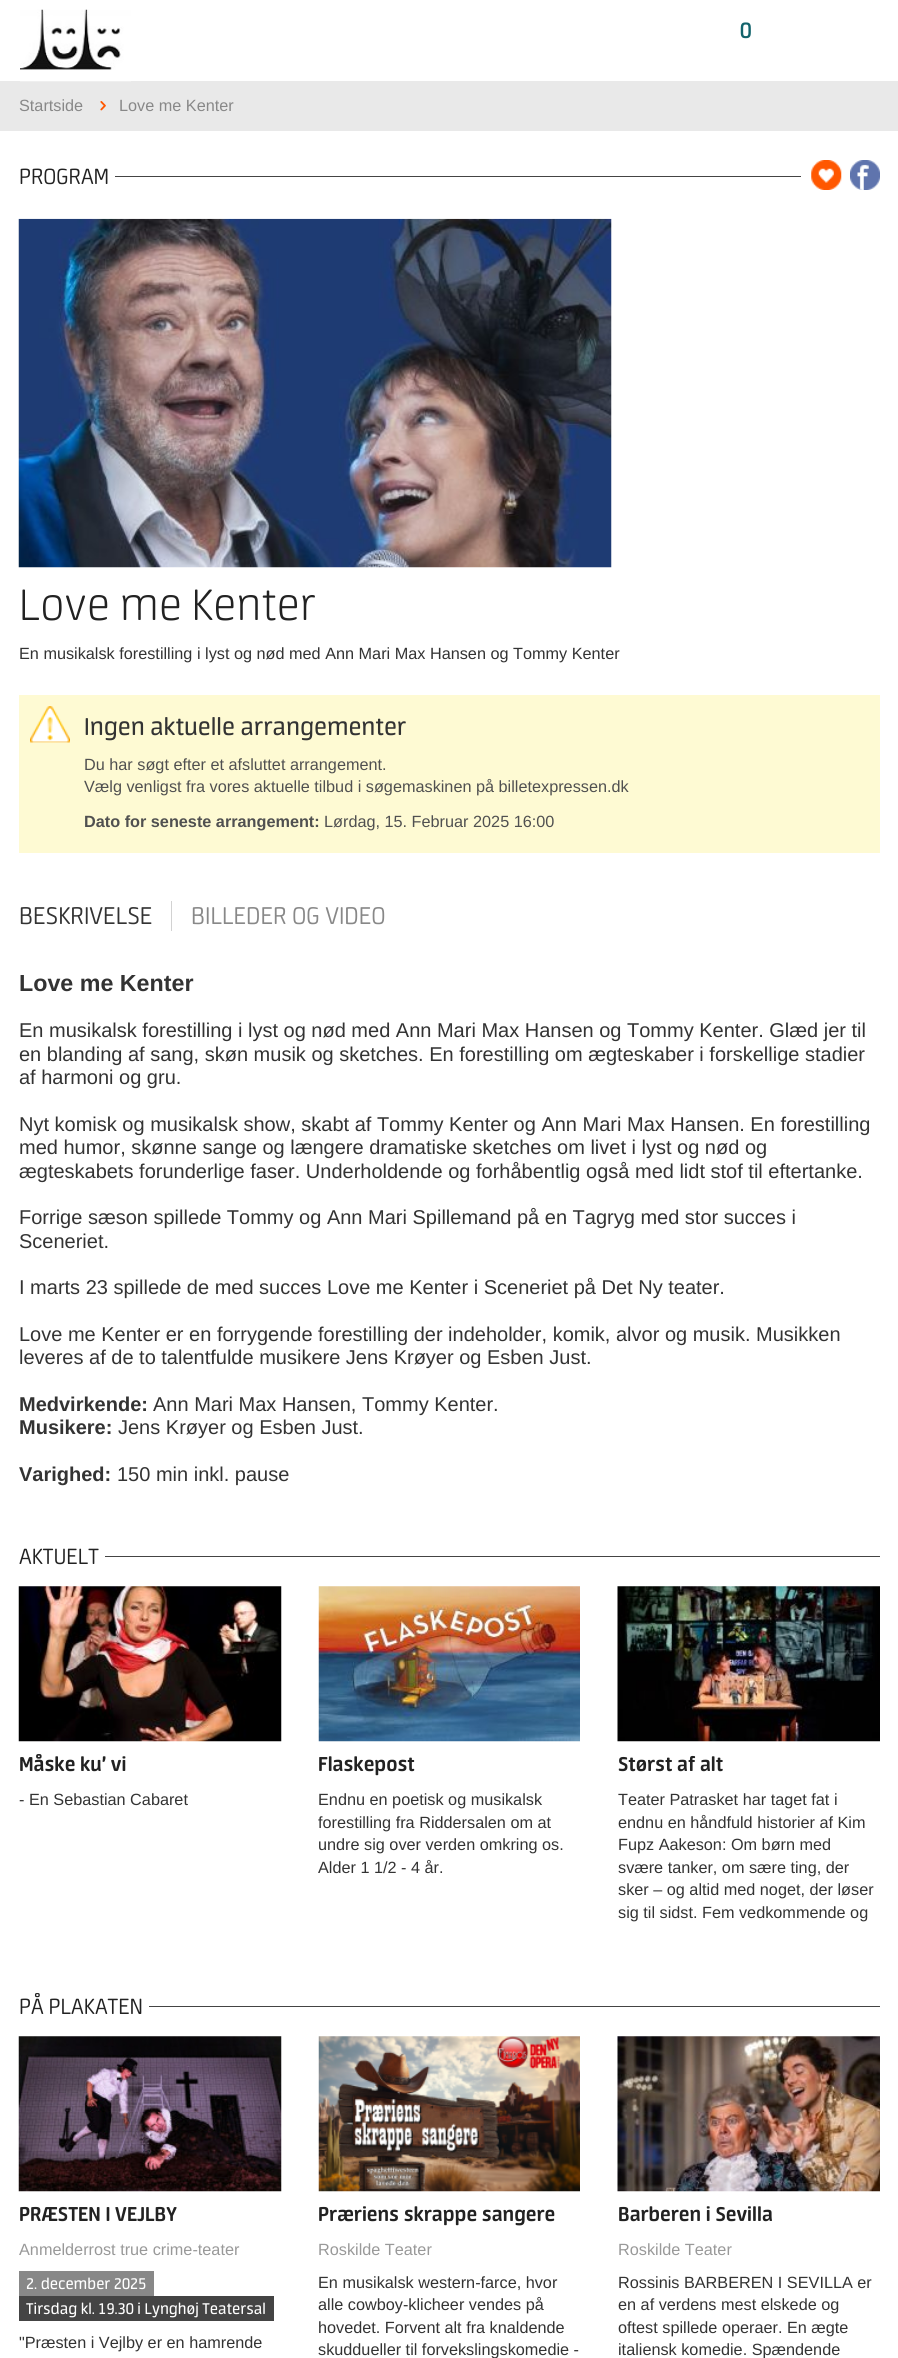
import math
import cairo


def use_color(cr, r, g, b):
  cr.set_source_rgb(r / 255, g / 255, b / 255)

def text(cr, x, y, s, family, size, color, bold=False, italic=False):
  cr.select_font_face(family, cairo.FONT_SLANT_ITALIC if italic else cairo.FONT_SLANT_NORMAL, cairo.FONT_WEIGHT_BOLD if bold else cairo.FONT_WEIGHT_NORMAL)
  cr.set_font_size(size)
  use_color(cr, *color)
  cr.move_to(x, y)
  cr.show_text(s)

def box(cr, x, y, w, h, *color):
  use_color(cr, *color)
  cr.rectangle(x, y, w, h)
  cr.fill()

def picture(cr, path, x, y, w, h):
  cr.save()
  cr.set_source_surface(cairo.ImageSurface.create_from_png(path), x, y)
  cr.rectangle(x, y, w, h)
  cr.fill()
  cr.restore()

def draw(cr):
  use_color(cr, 255, 255, 255)
  cr.paint()
  box(cr, 0, 81, 898, 50, 233, 233, 233)
  picture(cr, "img_01.png", 20, 9, 111, 73)
  box(cr, 115, 176, 686, 1, 68, 68, 68)
  picture(cr, "img_02.png", 811, 160, 31, 30)
  picture(cr, "img_03.png", 850, 160, 30, 30)
  picture(cr, "img_04.png", 18, 218, 594, 350)
  box(cr, 19, 695, 861, 158, 254, 250, 211)
  picture(cr, "img_05.png", 30, 706, 40, 37)
  box(cr, 171, 901, 1, 30, 210, 210, 210)
  box(cr, 105, 1556, 775, 1, 68, 68, 68)
  picture(cr, "img_06.png", 18, 1586, 264, 156)
  picture(cr, "img_07.png", 318, 1586, 262, 156)
  picture(cr, "img_08.png", 617, 1586, 263, 156)
  box(cr, 149, 2006, 731, 1, 68, 68, 68)
  picture(cr, "img_09.png", 18, 2036, 264, 156)
  box(cr, 19, 2271, 135, 25, 136, 136, 136)
  box(cr, 19, 2296, 255, 25, 68, 68, 68)
  picture(cr, "img_10.png", 318, 2036, 262, 156)
  picture(cr, "img_11.png", 617, 2036, 263, 156)
  text(cr, 740, 38, "0", "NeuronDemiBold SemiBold", 25, (19, 100, 108))
  text(cr, 19, 111, "Startside", "Liberation Sans", 16.25, (136, 136, 136))
  text(cr, 95, 113, "$", "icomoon", 16.25, (255, 87, 0))
  text(cr, 119, 111, "Love me Kenter", "Liberation Sans", 16.25, (136, 136, 136))
  text(cr, 19, 184, "PROGRAM", "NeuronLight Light", 25, (34, 34, 34))
  text(cr, 19, 620, "Love me Kenter", "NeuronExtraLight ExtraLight", 50, (34, 34, 34))
  text(cr, 19, 659, "En musikalsk forestilling i lyst og nød med Ann Mari Max Hansen og Tommy Kenter", "Liberation Sans", 16.25, (51, 51, 51))
  text(cr, 84, 735, "Ingen aktuelle arrangementer", "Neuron", 27.5, (51, 51, 51))
  text(cr, 84, 770, "Du har søgt efter et afsluttet arrangement.", "Liberation Sans", 16.25, (80, 80, 80))
  text(cr, 84, 792, "Vælg venligst fra vores aktuelle tilbud i søgemaskinen på billetexpressen.dk", "Liberation Sans", 16.25, (80, 80, 80))
  text(cr, 84, 827, "Dato for seneste arrangement:", "Liberation Sans", 16.25, (80, 80, 80), bold=True)
  text(cr, 324, 827, "Lørdag, 15. Februar 2025 16:00", "Liberation Sans", 16.25, (80, 80, 80))
  text(cr, 19, 924, "BESKRIVELSE", "NeuronLight Light", 27.5, (51, 51, 51))
  text(cr, 191, 924, "BILLEDER OG VIDEO", "NeuronLight Light", 27.5, (136, 136, 136))
  text(cr, 19, 991, "Love me Kenter", "Liberation Sans", 23.25, (51, 51, 51), bold=True)
  text(cr, 19, 1037, "En musikalsk forestilling i lyst og nød med Ann Mari Max Hansen og Tommy Kenter. Glæd jer til", "Liberation Sans", 20, (51, 51, 51))
  text(cr, 19, 1061, "en blanding af sang, skøn musik og sketches. En forestilling om ægteskaber i forskellige stadier", "Liberation Sans", 20, (51, 51, 51))
  text(cr, 19, 1084, "af harmoni og gru.", "Liberation Sans", 20, (51, 51, 51))
  text(cr, 19, 1131, "Nyt komisk og musikalsk show, skabt af Tommy Kenter og Ann Mari Max Hansen. En forestilling", "Liberation Sans", 20, (51, 51, 51))
  text(cr, 19, 1154, "med humor, skønne sange og længere dramatiske sketches om livet i lyst og nød og", "Liberation Sans", 20, (51, 51, 51))
  text(cr, 19, 1178, "ægteskabets forunderlige faser. Underholdende og forhåbentlig også med lidt stof til eftertanke.", "Liberation Sans", 20, (51, 51, 51))
  text(cr, 19, 1224, "Forrige sæson spillede Tommy og Ann Mari Spillemand på en Tagryg med stor succes i", "Liberation Sans", 20, (51, 51, 51))
  text(cr, 19, 1248, "Sceneriet.", "Liberation Sans", 20, (51, 51, 51))
  text(cr, 19, 1294, "I marts 23 spillede de med succes Love me Kenter i Sceneriet på Det Ny teater.", "Liberation Sans", 20, (51, 51, 51))
  text(cr, 19, 1341, "Love me Kenter er en forrygende forestilling der indeholder, komik, alvor og musik. Musikken", "Liberation Sans", 20, (51, 51, 51))
  text(cr, 19, 1364, "leveres af de to talentfulde musikere Jens Krøyer og Esben Just.", "Liberation Sans", 20, (51, 51, 51))
  text(cr, 19, 1411, "Medvirkende:", "Liberation Sans", 20, (51, 51, 51), bold=True)
  text(cr, 153, 1411, "Ann Mari Max Hansen, Tommy Kenter.", "Liberation Sans", 20, (51, 51, 51))
  text(cr, 19, 1434, "Musikere:", "Liberation Sans", 20, (51, 51, 51), bold=True)
  text(cr, 118, 1434, "Jens Krøyer og Esben Just.", "Liberation Sans", 20, (51, 51, 51))
  text(cr, 19, 1481, "Varighed:", "Liberation Sans", 20, (51, 51, 51), bold=True)
  text(cr, 117, 1481, "150 min inkl. pause", "Liberation Sans", 20, (51, 51, 51))
  text(cr, 19, 1564, "AKTUELT", "NeuronLight Light", 25, (34, 34, 34))
  text(cr, 19, 1771, "Måske ku’ vi", "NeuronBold", 22.5, (34, 34, 34), bold=True)
  text(cr, 19, 1805, "- En Sebastian Cabaret", "Liberation Sans", 16.25, (51, 51, 51))
  text(cr, 318, 1771, "Flaskepost", "NeuronBold", 22.5, (34, 34, 34), bold=True)
  text(cr, 318, 1805, "Endnu en poetisk og musikalsk", "Liberation Sans", 16.25, (51, 51, 51))
  text(cr, 318, 1828, "forestilling fra Riddersalen om at", "Liberation Sans", 16.25, (51, 51, 51))
  text(cr, 318, 1850, "undre sig over verden omkring os.", "Liberation Sans", 16.25, (51, 51, 51))
  text(cr, 318, 1873, "Alder 1 1/2 - 4 år.", "Liberation Sans", 16.25, (51, 51, 51))
  text(cr, 618, 1771, "Størst af alt", "NeuronBold", 22.5, (34, 34, 34), bold=True)
  text(cr, 618, 1805, "Teater Patrasket har taget fat i", "Liberation Sans", 16.25, (51, 51, 51))
  text(cr, 618, 1828, "endnu en håndfuld historier af Kim", "Liberation Sans", 16.25, (51, 51, 51))
  text(cr, 618, 1850, "Fupz Aakeson: Om børn med", "Liberation Sans", 16.25, (51, 51, 51))
  text(cr, 618, 1873, "svære tanker, om sære ting, der", "Liberation Sans", 16.25, (51, 51, 51))
  text(cr, 618, 1895, "sker – og altid med noget, der løser", "Liberation Sans", 16.25, (51, 51, 51))
  text(cr, 618, 1918, "sig til sidst. Fem vedkommende og", "Liberation Sans", 16.25, (51, 51, 51))
  text(cr, 19, 2014, "PÅ PLAKATEN", "NeuronLight Light", 25, (34, 34, 34))
  text(cr, 19, 2221, "PRÆSTEN I VEJLBY", "NeuronBold", 22.5, (34, 34, 34), bold=True)
  text(cr, 19, 2255, "Anmelderrost true crime-teater", "Liberation Sans", 16.25, (153, 153, 153))
  text(cr, 26, 2289, "2. december 2025", "Neuron", 17.5, (255, 255, 255))
  text(cr, 26, 2314, "Tirsdag kl. 19.30 i Lynghøj Teatersal", "Neuron", 17.5, (255, 255, 255))
  text(cr, 19, 2348, "\"Præsten i Vejlby er en hamrende", "Liberation Sans", 16.25, (51, 51, 51))
  text(cr, 318, 2221, "Præriens skrappe sangere", "NeuronBold", 22.5, (34, 34, 34), bold=True)
  text(cr, 318, 2255, "Roskilde Teater", "Liberation Sans", 16.25, (153, 153, 153))
  text(cr, 318, 2288, "En musikalsk western-farce, hvor", "Liberation Sans", 16.25, (51, 51, 51))
  text(cr, 318, 2310, "alle cowboy-klicheer vendes på", "Liberation Sans", 16.25, (51, 51, 51))
  text(cr, 318, 2333, "hovedet. Forvent alt fra knaldende", "Liberation Sans", 16.25, (51, 51, 51))
  text(cr, 318, 2355, "skuddueller til forvekslingskomedie -", "Liberation Sans", 16.25, (51, 51, 51))
  text(cr, 618, 2221, "Barberen i Sevilla", "NeuronBold", 22.5, (34, 34, 34), bold=True)
  text(cr, 618, 2255, "Roskilde Teater", "Liberation Sans", 16.25, (153, 153, 153))
  text(cr, 618, 2288, "Rossinis BARBEREN I SEVILLA er", "Liberation Sans", 16.25, (51, 51, 51))
  text(cr, 618, 2310, "en af verdens mest elskede og", "Liberation Sans", 16.25, (51, 51, 51))
  text(cr, 618, 2333, "oftest spillede operaer. En ægte", "Liberation Sans", 16.25, (51, 51, 51))
  text(cr, 618, 2355, "italiensk komedie. Spændende", "Liberation Sans", 16.25, (51, 51, 51))


surface = cairo.ImageSurface(cairo.FORMAT_RGB24, 898, 2358)
cr = cairo.Context(surface)
options = cairo.FontOptions()
options.set_hint_metrics(cairo.HINT_METRICS_OFF)
options.set_hint_style(cairo.HINT_STYLE_NONE)
cr.set_font_options(options)
cr.set_miter_limit(4)
draw(cr)
surface.write_to_png("out.png")
